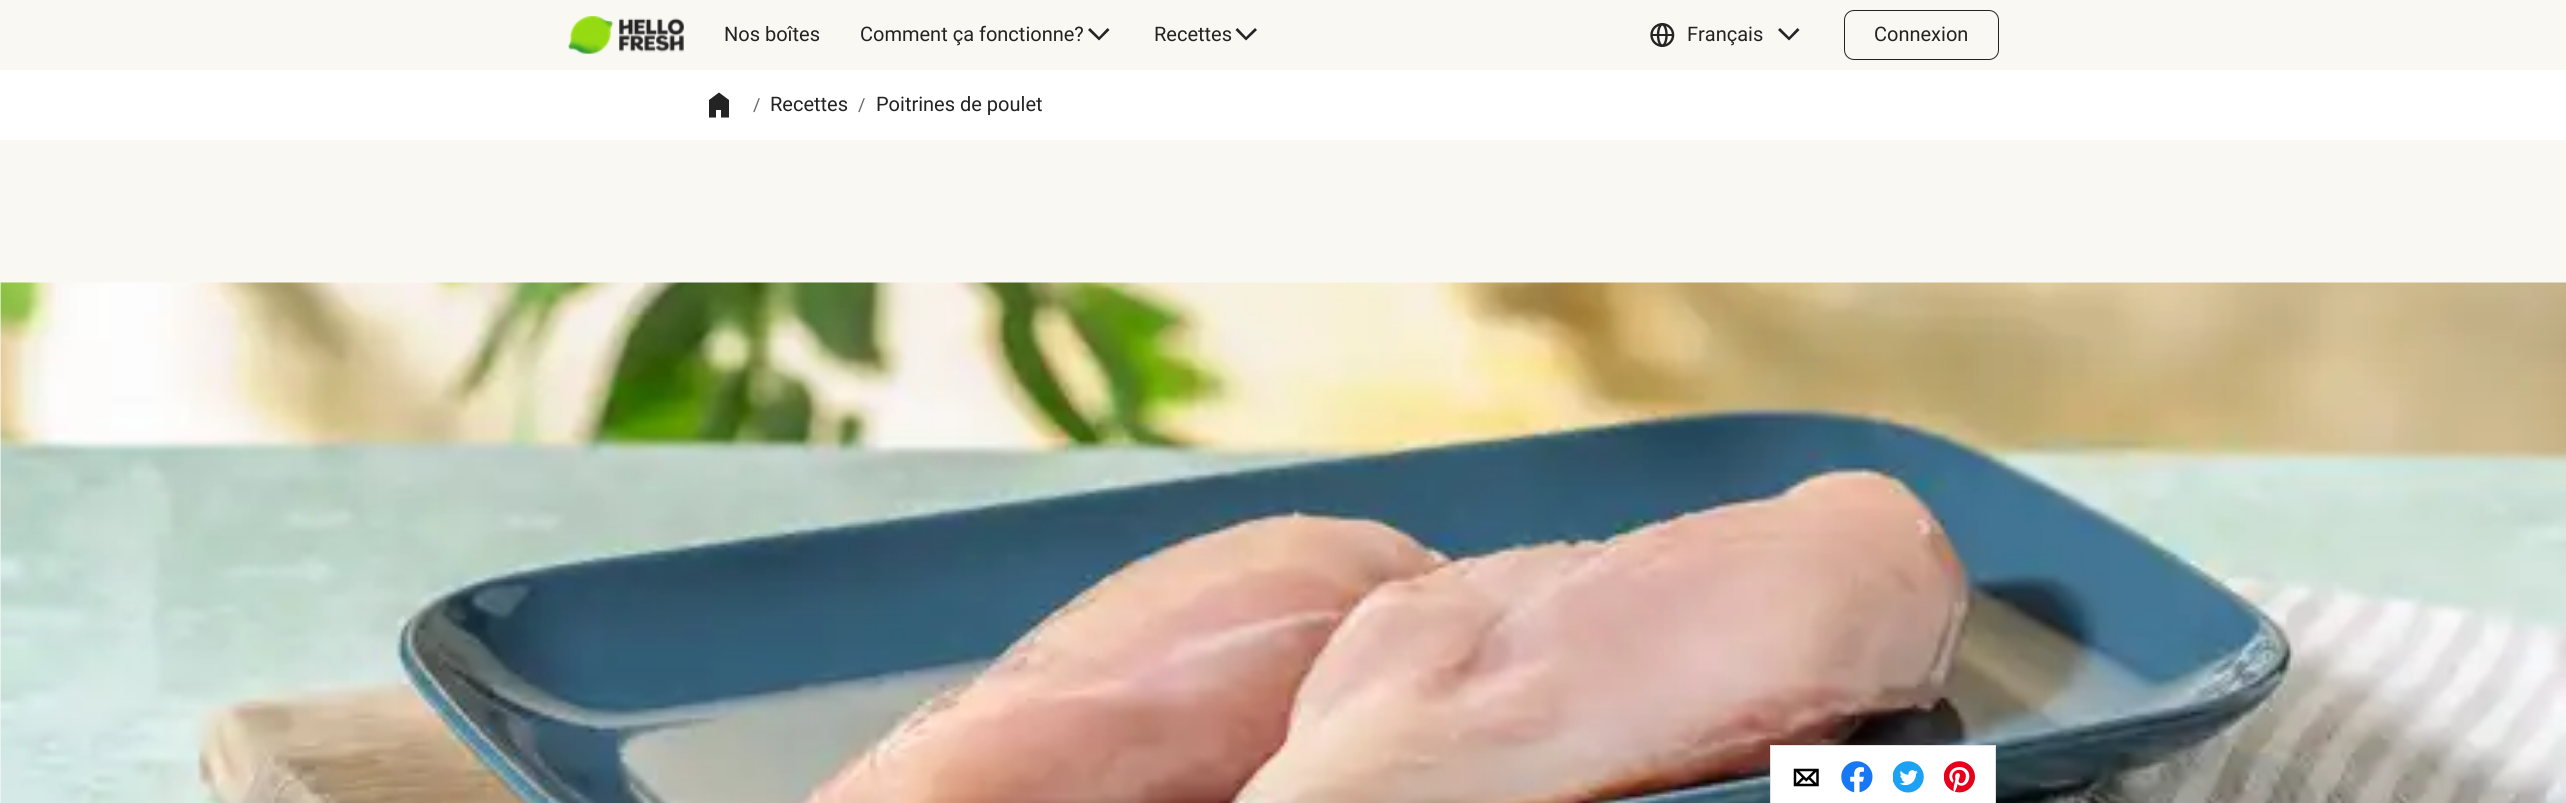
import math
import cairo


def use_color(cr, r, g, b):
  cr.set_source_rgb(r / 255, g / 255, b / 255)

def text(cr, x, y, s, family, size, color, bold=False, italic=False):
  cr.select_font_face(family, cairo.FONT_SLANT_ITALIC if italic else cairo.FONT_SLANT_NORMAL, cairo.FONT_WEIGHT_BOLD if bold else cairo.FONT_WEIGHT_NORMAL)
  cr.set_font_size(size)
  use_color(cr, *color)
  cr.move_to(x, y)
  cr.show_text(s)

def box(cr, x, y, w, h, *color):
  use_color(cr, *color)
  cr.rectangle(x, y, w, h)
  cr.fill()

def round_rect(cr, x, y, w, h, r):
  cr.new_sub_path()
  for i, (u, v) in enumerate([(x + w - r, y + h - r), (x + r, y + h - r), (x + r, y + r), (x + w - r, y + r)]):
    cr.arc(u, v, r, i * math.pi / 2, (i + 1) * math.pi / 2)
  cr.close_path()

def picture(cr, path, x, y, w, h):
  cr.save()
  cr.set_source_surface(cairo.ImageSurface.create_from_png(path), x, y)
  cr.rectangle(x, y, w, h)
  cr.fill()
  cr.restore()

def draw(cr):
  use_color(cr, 250, 248, 243)
  cr.paint()
  picture(cr, "img_01.png", 568, 16, 116, 38)
  use_color(cr, 36, 36, 36)
  cr.set_fill_rule(cairo.FILL_RULE_EVEN_ODD)
  cr.new_path()
  cr.move_to(1099, 40.5)
  cr.line_to(1109.5, 30)
  cr.line_to(1107.5, 28)
  cr.line_to(1099, 37)
  cr.line_to(1090, 28)
  cr.line_to(1088, 30)
  cr.close_path()
  cr.fill()
  cr.new_path()
  cr.move_to(1246, 40.5)
  cr.line_to(1257, 30)
  cr.line_to(1255, 28)
  cr.line_to(1246, 37)
  cr.line_to(1237.5, 28)
  cr.line_to(1235.5, 30)
  cr.close_path()
  cr.fill()
  picture(cr, "img_02.png", 1650, 23, 25, 24)
  cr.new_path()
  cr.move_to(1789, 40.5)
  cr.line_to(1799.5, 30)
  cr.line_to(1797.5, 28)
  cr.line_to(1789, 37)
  cr.line_to(1780, 28)
  cr.line_to(1778, 30)
  cr.close_path()
  cr.fill()
  round_rect(cr, 1844.5, 10.5, 154, 49, 9.5)
  use_color(cr, 35, 35, 35)
  cr.set_line_width(1)
  cr.stroke()
  box(cr, 0, 70, 2566, 70, 255, 255, 255)
  use_color(cr, 35, 35, 35)
  cr.set_fill_rule(cairo.FILL_RULE_WINDING)
  cr.new_path()
  cr.move_to(719, 92.5)
  cr.line_to(729, 100)
  cr.line_to(729, 117.5)
  cr.line_to(721, 117.5)
  cr.line_to(721, 110)
  cr.line_to(716, 110)
  cr.line_to(716, 117.5)
  cr.line_to(709, 117.5)
  cr.line_to(709, 100)
  cr.close_path()
  cr.fill()
  picture(cr, "img_03.png", 0, 282, 2566, 521)
  use_color(cr, 255, 255, 255)
  cr.rectangle(1770.5, 745.5, 225, 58)
  cr.fill_preserve()
  use_color(cr, 224, 224, 224)
  cr.stroke()
  picture(cr, "img_04.png", 1793, 768, 26, 19)
  picture(cr, "img_05.png", 1841, 761, 32, 32)
  picture(cr, "img_06.png", 1893, 761, 31, 32)
  picture(cr, "img_07.png", 1944, 761, 31, 32)
  text(cr, 724, 41, "Nos boîtes", "Roboto", 20, (35, 35, 35))
  text(cr, 860, 41, "Comment ça fonctionne?", "Roboto", 20, (35, 35, 35))
  text(cr, 1154, 41, "Recettes", "Roboto", 20, (35, 35, 35))
  text(cr, 1687, 41, "Français", "Roboto", 20, (35, 35, 35))
  text(cr, 1874, 41, "Connexion", "Roboto", 20, (35, 35, 35))
  text(cr, 753, 111, "/", "Roboto", 18, (101, 101, 101))
  text(cr, 770, 111, "Recettes", "Roboto", 20, (35, 35, 35))
  text(cr, 858, 111, "/", "Roboto", 18, (101, 101, 101))
  text(cr, 876, 111, "Poitrines de poulet", "Roboto", 20, (35, 35, 35))


surface = cairo.ImageSurface(cairo.FORMAT_RGB24, 2566, 803)
cr = cairo.Context(surface)
options = cairo.FontOptions()
options.set_hint_metrics(cairo.HINT_METRICS_OFF)
options.set_hint_style(cairo.HINT_STYLE_NONE)
cr.set_font_options(options)
cr.set_miter_limit(4)
draw(cr)
surface.write_to_png("out.png")
